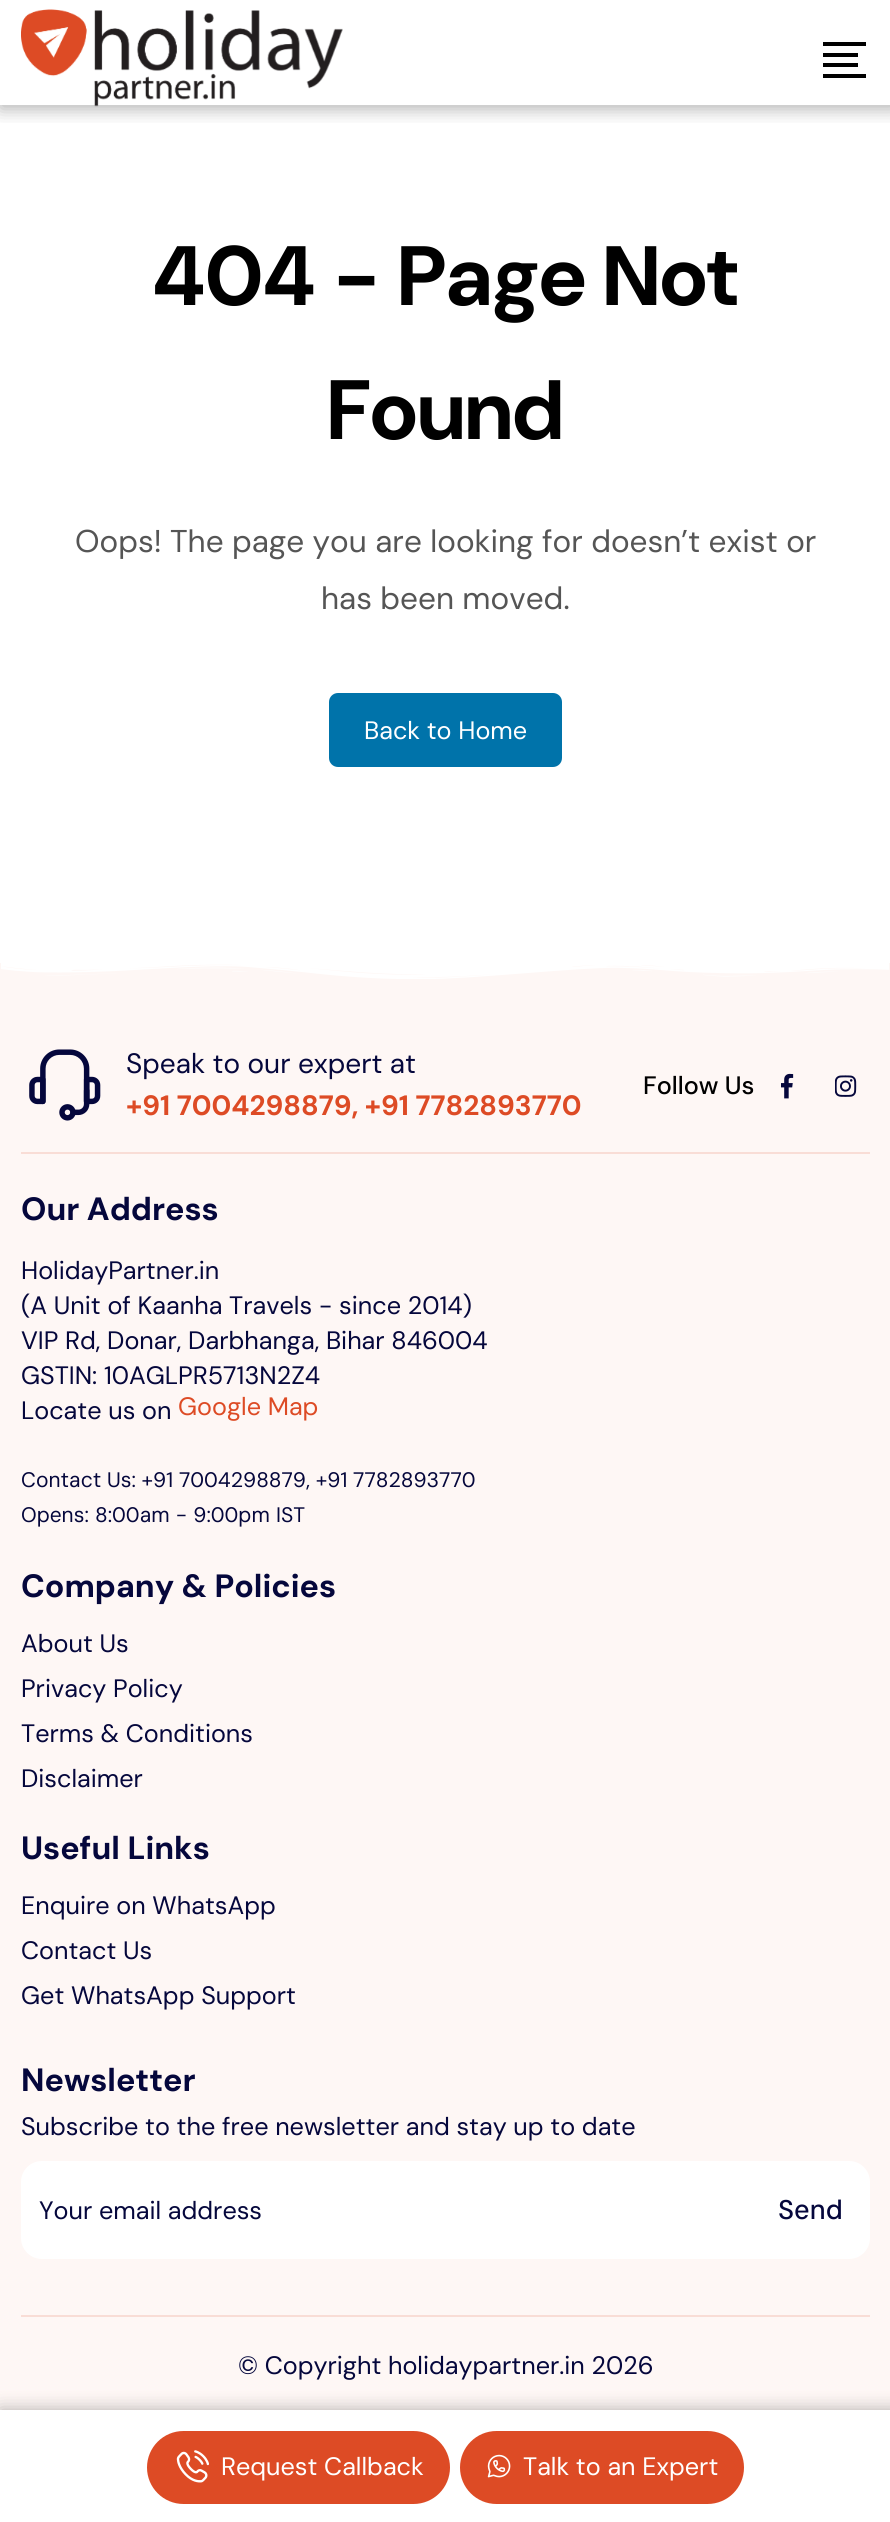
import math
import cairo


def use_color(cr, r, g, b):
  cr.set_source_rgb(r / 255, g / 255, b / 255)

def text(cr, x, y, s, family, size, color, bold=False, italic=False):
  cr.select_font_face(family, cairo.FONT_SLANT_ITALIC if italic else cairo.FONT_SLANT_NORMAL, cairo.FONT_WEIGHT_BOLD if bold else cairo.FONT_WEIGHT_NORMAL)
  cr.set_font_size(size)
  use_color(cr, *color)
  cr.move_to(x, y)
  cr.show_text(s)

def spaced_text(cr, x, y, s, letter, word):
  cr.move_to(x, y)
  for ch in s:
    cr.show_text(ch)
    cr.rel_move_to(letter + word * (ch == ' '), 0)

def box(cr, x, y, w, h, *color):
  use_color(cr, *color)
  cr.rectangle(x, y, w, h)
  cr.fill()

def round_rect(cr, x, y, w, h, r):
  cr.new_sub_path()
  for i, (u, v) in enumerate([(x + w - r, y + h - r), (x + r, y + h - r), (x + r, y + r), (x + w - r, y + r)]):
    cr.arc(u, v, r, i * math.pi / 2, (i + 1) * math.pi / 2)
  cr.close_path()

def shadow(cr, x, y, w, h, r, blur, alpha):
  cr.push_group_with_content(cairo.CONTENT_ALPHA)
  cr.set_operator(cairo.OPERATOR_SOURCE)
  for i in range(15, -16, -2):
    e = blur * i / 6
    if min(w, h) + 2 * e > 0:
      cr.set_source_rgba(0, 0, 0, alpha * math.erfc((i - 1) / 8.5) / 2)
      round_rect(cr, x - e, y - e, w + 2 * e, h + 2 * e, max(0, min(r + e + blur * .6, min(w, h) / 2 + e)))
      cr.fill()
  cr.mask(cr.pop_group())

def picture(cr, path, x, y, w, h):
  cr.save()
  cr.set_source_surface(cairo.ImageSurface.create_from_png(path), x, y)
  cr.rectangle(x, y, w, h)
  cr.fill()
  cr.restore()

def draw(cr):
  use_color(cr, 255, 255, 255)
  cr.paint()
  cr.save()
  cr.rectangle(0, 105, 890, 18)
  cr.clip()
  use_color(cr, 0, 0, 0)
  shadow(cr, 0, 0, 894, 109, 0, 9, 0.3)
  cr.restore()
  picture(cr, "img_01.png", 21, 9, 322, 98)
  box(cr, 823, 42, 43, 4, 0, 0, 0)
  box(cr, 823, 53, 35, 4, 0, 0, 0)
  box(cr, 823, 63, 35, 4, 0, 0, 0)
  box(cr, 823, 74, 43, 4, 0, 0, 0)
  use_color(cr, 0, 115, 170)
  round_rect(cr, 329, 693, 233, 74, 9)
  cr.fill()
  box(cr, 0, 963, 890, 1447, 254, 247, 245)
  picture(cr, "img_02.png", 1, 963, 888, 16)
  picture(cr, "img_03.png", 29, 1049, 72, 72)
  picture(cr, "img_04.png", 781, 1073, 13, 26)
  picture(cr, "img_05.png", 835, 1075, 22, 22)
  box(cr, 21, 1152, 849, 2, 249, 221, 214)
  box(cr, 21, 2315, 849, 2, 249, 221, 214)
  use_color(cr, 255, 255, 255)
  round_rect(cr, 21, 2161, 849, 98, 21)
  cr.fill()
  use_color(cr, 0, 0, 0)
  shadow(cr, 0, 2410, 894, 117, 0, 9, 0.3)
  box(cr, 0, 2410, 890, 112, 255, 255, 255)
  use_color(cr, 221, 75, 37)
  round_rect(cr, 147, 2431, 303, 73, 36.5)
  cr.fill()
  picture(cr, "img_06.png", 176, 2450, 33, 33)
  round_rect(cr, 460, 2431, 284, 73, 36.5)
  cr.fill()
  picture(cr, "img_07.png", 487, 2454, 24, 24)
  text(cr, 153, 305, "404 - Page Not", "DM Sans", 84, (0, 0, 0), bold=True)
  text(cr, 327, 439, "Found", "DM Sans", 84, (0, 0, 0), bold=True)
  text(cr, 75, 552, "Oops! The page you are looking for doesn’t exist or", "DM Sans", 31.5, (85, 85, 85))
  text(cr, 321, 609, "has been moved.", "DM Sans", 31.5, (85, 85, 85))
  text(cr, 364, 739, "Back to Home", "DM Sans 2", 25.2, (255, 255, 255))
  text(cr, 126, 1073, "Speak to our expert at", "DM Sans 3", 28, (5, 7, 60))
  text(cr, 126, 1115, "+91 7004298879, +91 7782893770", "DM Sans 2", 28, (221, 75, 37), bold=True)
  text(cr, 643, 1094, "Follow Us", "DM Sans Medium", 25.2, (0, 0, 0))
  text(cr, 21, 1220, "Our Address", "DM Sans 3", 32.25, (5, 7, 60), bold=True)
  text(cr, 21, 1279, "HolidayPartner.in", "DM Sans 2", 25.2, (5, 7, 60))
  text(cr, 21, 1314, "(A Unit of Kaanha Travels - since 2014)", "DM Sans 2", 25.2, (5, 7, 60))
  text(cr, 21, 1349, "VIP Rd, Donar, Darbhanga, Bihar 846004", "DM Sans 2", 25.2, (5, 7, 60))
  text(cr, 21, 1384, "GSTIN: 10AGLPR5713N2Z4", "DM Sans 2", 25.2, (5, 7, 60))
  text(cr, 21, 1419, "Locate us on", "DM Sans 2", 25.2, (5, 7, 60))
  text(cr, 178, 1415, "Google Map", "DM Sans 2", 25.2, (221, 75, 37))
  text(cr, 21, 1487, "Contact Us: +91 7004298879, +91 7782893770", "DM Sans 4", 21, (5, 7, 60))
  spaced_text(cr, 21, 1522, "Opens: 8:00am - 9:00pm IST", 0, 0.5)
  text(cr, 21, 1597, "Company & Policies", "DM Sans 3", 32.25, (5, 7, 60), bold=True)
  text(cr, 21, 1652, "About Us", "DM Sans 2", 25.2, (5, 7, 60))
  text(cr, 21, 1697, "Privacy Policy", "DM Sans 2", 25.2, (5, 7, 60))
  text(cr, 21, 1742, "Terms & Conditions", "DM Sans 2", 25.2, (5, 7, 60))
  text(cr, 21, 1787, "Disclaimer", "DM Sans 2", 25.2, (5, 7, 60))
  text(cr, 21, 1859, "Useful Links", "DM Sans 3", 32.25, (5, 7, 60), bold=True)
  text(cr, 21, 1914, "Enquire on WhatsApp", "DM Sans 2", 25.2, (5, 7, 60))
  text(cr, 21, 1959, "Contact Us", "DM Sans 2", 25.2, (5, 7, 60))
  text(cr, 21, 2004, "Get WhatsApp Support", "DM Sans 2", 25.2, (5, 7, 60))
  text(cr, 21, 2091, "Newsletter", "DM Sans 3", 32.25, (5, 7, 60), bold=True)
  text(cr, 21, 2135, "Subscribe to the free newsletter and stay up to date", "DM Sans 2", 25.2, (5, 7, 60))
  text(cr, 39, 2219, "Your email address", "DM Sans 2", 25.2, (5, 7, 60))
  text(cr, 778, 2219, "Send", "DM Sans 2 Medium", 27, (5, 7, 60))
  text(cr, 238, 2374, "© Copyright holidaypartner.in 2026", "DM Sans 2", 25.2, (5, 7, 60))
  text(cr, 221, 2475, "Request Callback", "DM Sans 2", 25.2, (255, 255, 255))
  text(cr, 523, 2475, "Talk to an Expert", "DM Sans 2", 25.2, (255, 255, 255))


surface = cairo.ImageSurface(cairo.FORMAT_RGB24, 890, 2522)
cr = cairo.Context(surface)
options = cairo.FontOptions()
options.set_hint_metrics(cairo.HINT_METRICS_OFF)
options.set_hint_style(cairo.HINT_STYLE_NONE)
cr.set_font_options(options)
cr.set_miter_limit(4)
draw(cr)
surface.write_to_png("out.png")
